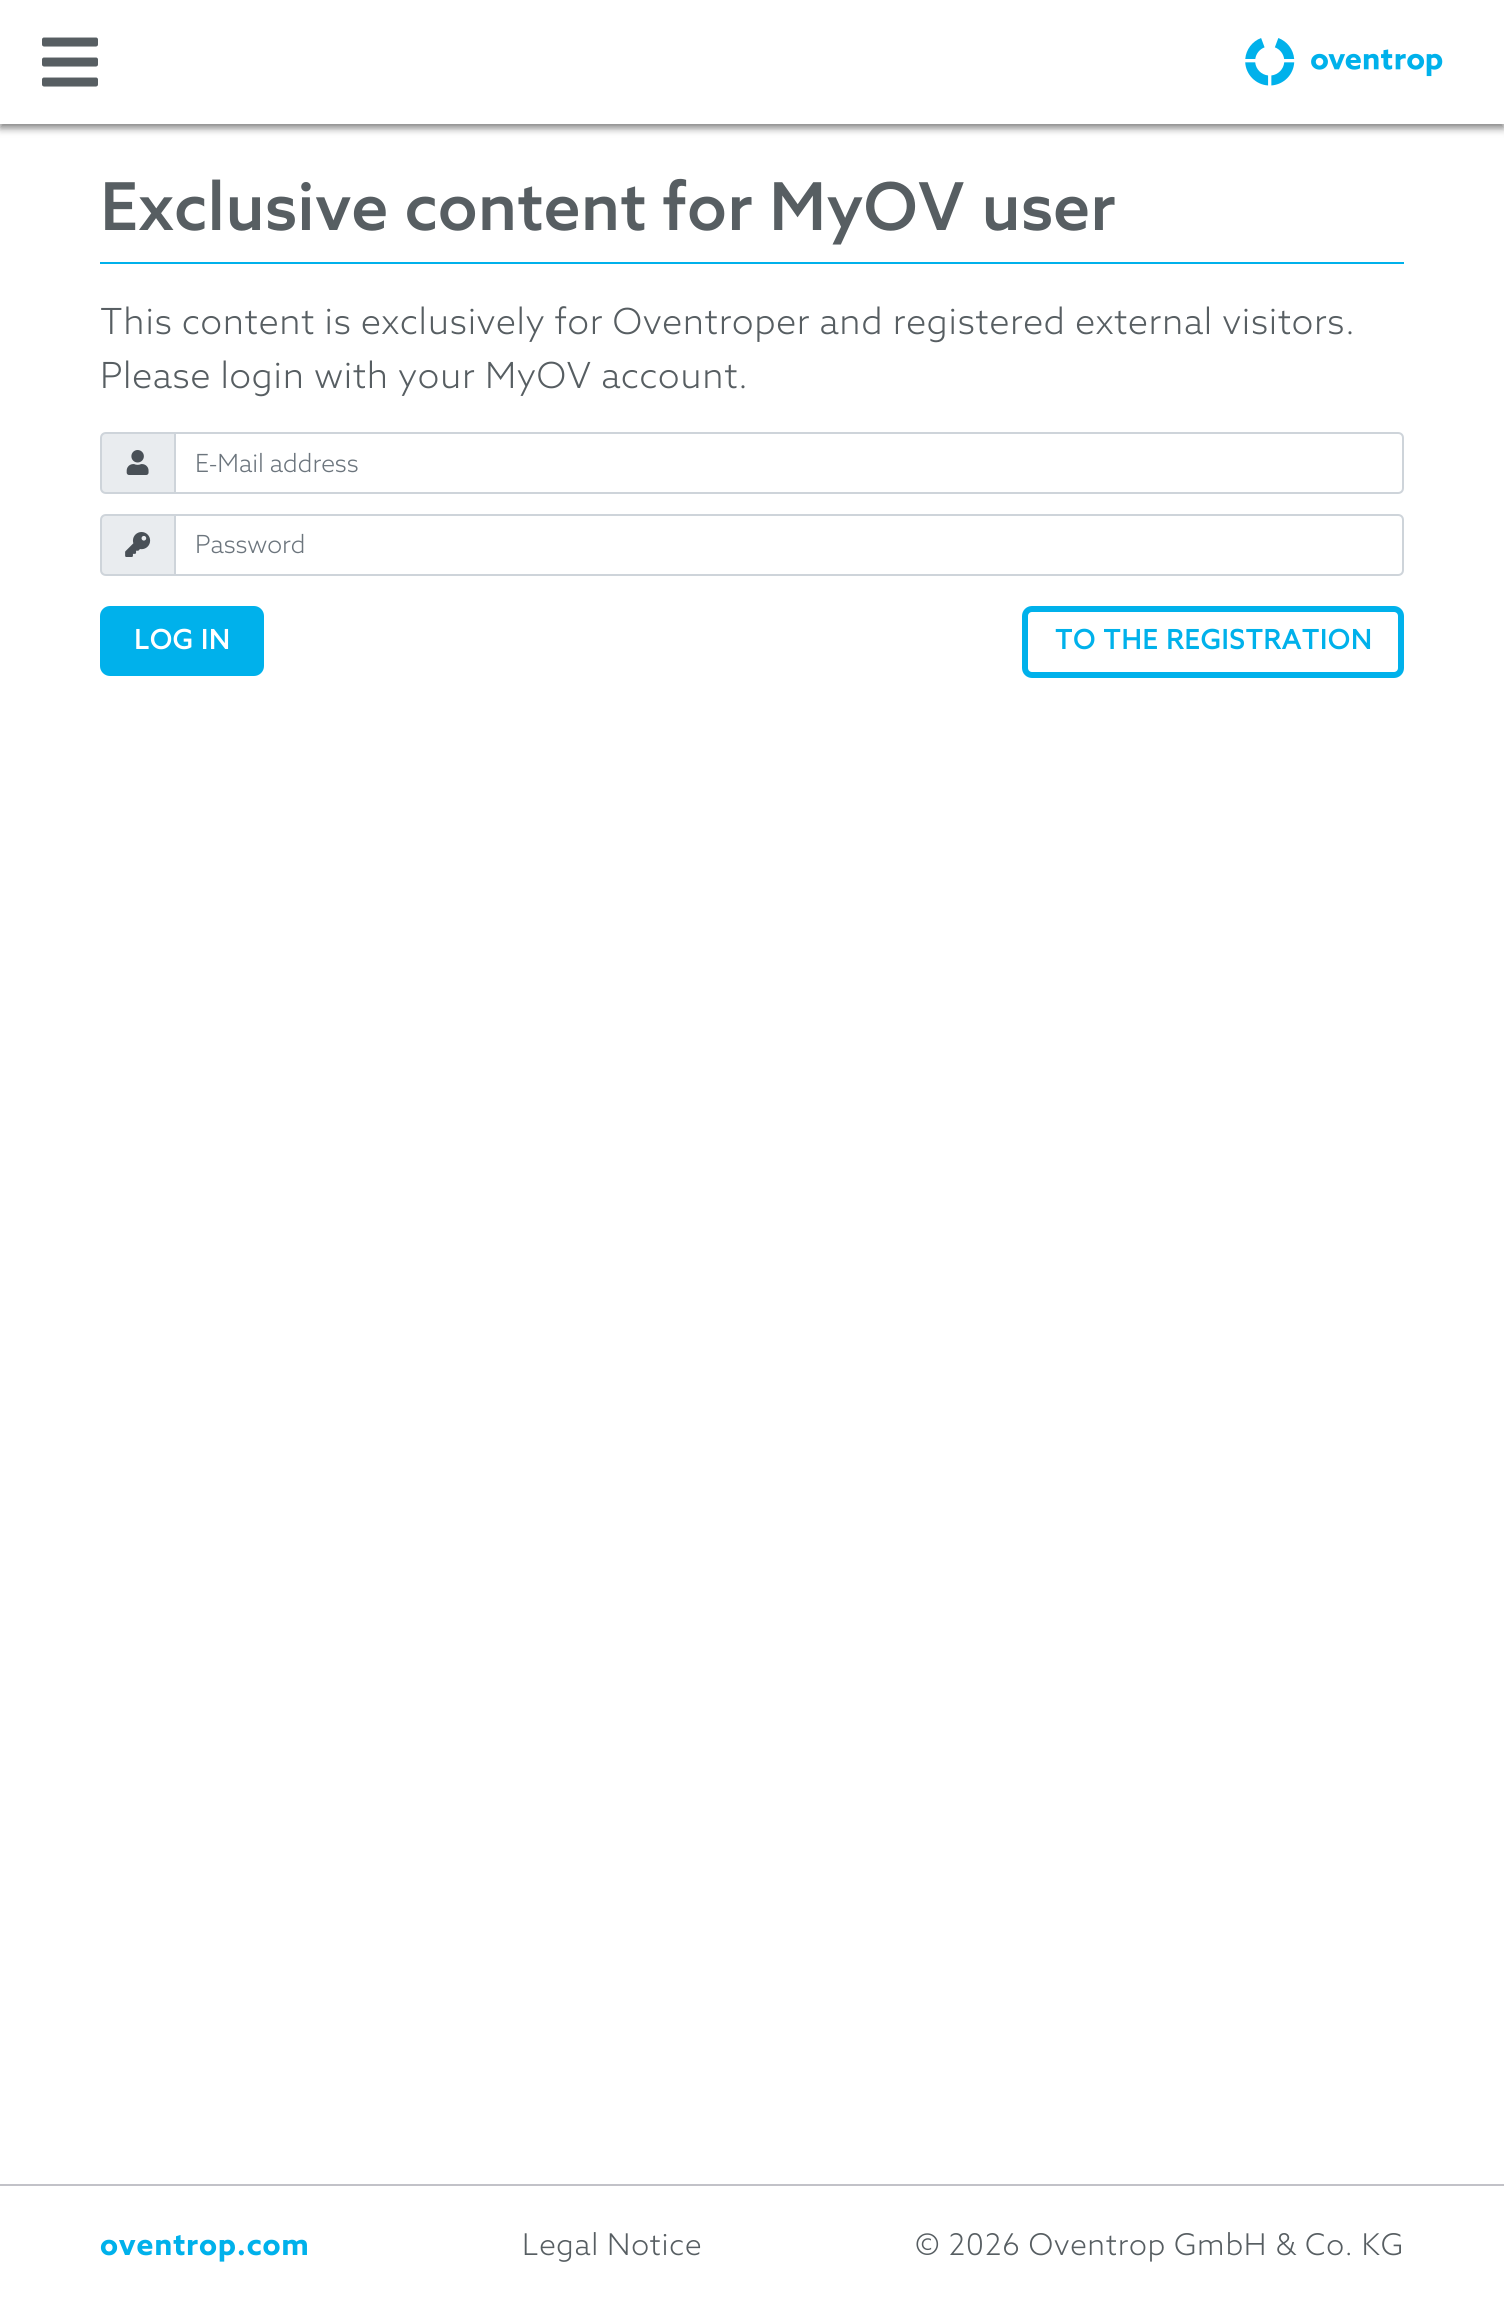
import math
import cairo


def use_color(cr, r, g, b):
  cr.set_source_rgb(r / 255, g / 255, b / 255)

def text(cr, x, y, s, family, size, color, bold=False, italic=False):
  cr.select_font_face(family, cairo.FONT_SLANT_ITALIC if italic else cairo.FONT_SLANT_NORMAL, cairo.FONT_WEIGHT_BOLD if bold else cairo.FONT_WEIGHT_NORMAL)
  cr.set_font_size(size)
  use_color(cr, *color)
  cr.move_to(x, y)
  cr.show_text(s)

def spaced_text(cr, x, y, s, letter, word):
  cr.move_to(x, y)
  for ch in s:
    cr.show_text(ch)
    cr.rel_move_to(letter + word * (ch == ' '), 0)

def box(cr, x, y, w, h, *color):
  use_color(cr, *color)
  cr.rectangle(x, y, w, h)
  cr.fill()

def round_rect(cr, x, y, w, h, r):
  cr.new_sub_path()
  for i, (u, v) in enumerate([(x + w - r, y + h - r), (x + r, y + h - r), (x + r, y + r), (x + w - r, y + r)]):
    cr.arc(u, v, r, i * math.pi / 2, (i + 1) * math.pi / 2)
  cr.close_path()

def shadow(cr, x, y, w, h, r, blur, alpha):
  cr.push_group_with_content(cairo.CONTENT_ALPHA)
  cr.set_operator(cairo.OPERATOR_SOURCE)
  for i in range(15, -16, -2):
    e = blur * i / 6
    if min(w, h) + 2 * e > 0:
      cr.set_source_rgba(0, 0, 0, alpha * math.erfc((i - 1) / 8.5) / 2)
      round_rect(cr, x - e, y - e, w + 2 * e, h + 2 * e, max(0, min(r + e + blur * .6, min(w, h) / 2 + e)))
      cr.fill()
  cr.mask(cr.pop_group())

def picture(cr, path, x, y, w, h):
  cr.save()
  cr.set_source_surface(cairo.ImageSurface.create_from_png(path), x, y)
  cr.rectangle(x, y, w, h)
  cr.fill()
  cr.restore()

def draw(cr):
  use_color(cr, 255, 255, 255)
  cr.paint()
  use_color(cr, 0, 0, 0)
  shadow(cr, 0, 4, 1504, 124, 0, 4, 0.5)
  box(cr, 0, 0, 1504, 124, 255, 255, 255)
  picture(cr, "img_01.png", 42, 37, 56, 50)
  picture(cr, "img_02.png", 1245, 38, 198, 48)
  box(cr, 100, 262, 1304, 2, 0, 177, 235)
  use_color(cr, 233, 236, 239)
  cr.new_path()
  cr.move_to(106, 433)
  cr.line_to(175, 433)
  cr.line_to(175, 493)
  cr.line_to(106, 493)
  cr.curve_to(103, 493, 101, 491, 101, 488)
  cr.line_to(101, 438)
  cr.curve_to(101, 435, 103, 433, 106, 433)
  cr.close_path()
  cr.fill_preserve()
  use_color(cr, 206, 212, 218)
  cr.stroke()
  picture(cr, "img_03.png", 126, 450, 23, 25)
  cr.new_path()
  cr.move_to(175, 433)
  cr.line_to(1398, 433)
  cr.curve_to(1401, 433, 1403, 435, 1403, 438)
  cr.line_to(1403, 488)
  cr.curve_to(1403, 491, 1401, 493, 1398, 493)
  cr.line_to(175, 493)
  cr.close_path()
  cr.stroke()
  use_color(cr, 233, 236, 239)
  cr.new_path()
  cr.move_to(106, 515)
  cr.line_to(175, 515)
  cr.line_to(175, 575)
  cr.line_to(106, 575)
  cr.curve_to(103, 575, 101, 573, 101, 570)
  cr.line_to(101, 520)
  cr.curve_to(101, 517, 103, 515, 106, 515)
  cr.close_path()
  cr.fill_preserve()
  use_color(cr, 206, 212, 218)
  cr.stroke()
  picture(cr, "img_04.png", 125, 532, 26, 25)
  cr.new_path()
  cr.move_to(175, 515)
  cr.line_to(1398, 515)
  cr.curve_to(1401, 515, 1403, 517, 1403, 520)
  cr.line_to(1403, 570)
  cr.curve_to(1403, 573, 1401, 575, 1398, 575)
  cr.line_to(175, 575)
  cr.close_path()
  cr.stroke()
  use_color(cr, 0, 177, 235)
  round_rect(cr, 100, 606, 164, 70, 10)
  cr.fill()
  round_rect(cr, 1025, 609, 376, 66, 7)
  cr.set_line_width(6)
  cr.stroke()
  box(cr, 0, 2184, 1504, 2, 194, 194, 200)
  cr.select_font_face("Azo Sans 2 Medium")
  cr.set_font_size(66)
  use_color(cr, 87, 94, 98)
  spaced_text(cr, 100, 230, "Exclusive content for MyOV user", 0.4, 0)
  cr.select_font_face("Azo Sans 2 Light")
  cr.set_font_size(36)
  spaced_text(cr, 100, 334, "This content is exclusively for Oventroper and registered external visitors.", 0.8, 0)
  spaced_text(cr, 100, 388, "Please login with your MyOV account.", 0.8, 0)
  text(cr, 195, 472, "E-Mail address", "Azo Sans 2 Light", 25, (108, 117, 125))
  text(cr, 195, 553, "Password", "Azo Sans 2 Light", 25, (108, 117, 125))
  cr.select_font_face("Azo Sans 2", cairo.FONT_SLANT_NORMAL, cairo.FONT_WEIGHT_BOLD)
  cr.set_font_size(26.6)
  use_color(cr, 255, 255, 255)
  spaced_text(cr, 134, 649, "LOG IN", 1, 0)
  use_color(cr, 0, 177, 235)
  spaced_text(cr, 1055, 649, "TO THE REGISTRATION", 1, 0)
  cr.select_font_face("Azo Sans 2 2", cairo.FONT_SLANT_NORMAL, cairo.FONT_WEIGHT_BOLD)
  cr.set_font_size(30)
  spaced_text(cr, 100, 2255, "oventrop.com", 0.8, 0)
  cr.select_font_face("Azo Sans 2 Light")
  use_color(cr, 87, 94, 98)
  spaced_text(cr, 522, 2255, "Legal Notice", 0.8, 0)
  spaced_text(cr, 915, 2255, "© 2026 Oventrop GmbH & Co. KG", 0.8, 0)


surface = cairo.ImageSurface(cairo.FORMAT_RGB24, 1504, 2304)
cr = cairo.Context(surface)
options = cairo.FontOptions()
options.set_hint_metrics(cairo.HINT_METRICS_OFF)
options.set_hint_style(cairo.HINT_STYLE_NONE)
cr.set_font_options(options)
cr.set_miter_limit(4)
draw(cr)
surface.write_to_png("out.png")
